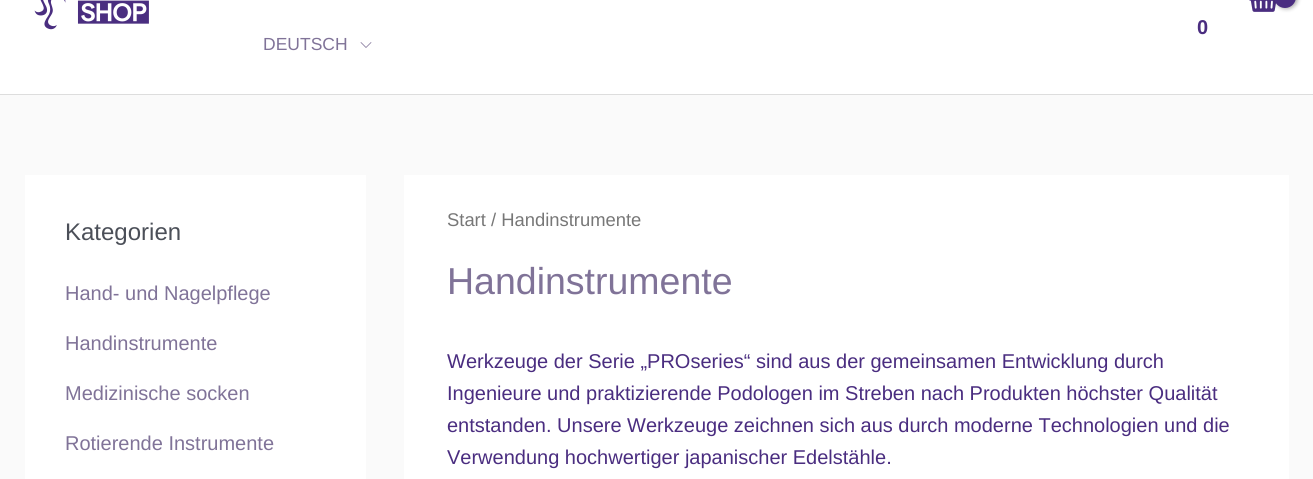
import math
import cairo


def use_color(cr, r, g, b):
  cr.set_source_rgb(r / 255, g / 255, b / 255)

def text(cr, x, y, s, family, size, color, bold=False, italic=False):
  cr.select_font_face(family, cairo.FONT_SLANT_ITALIC if italic else cairo.FONT_SLANT_NORMAL, cairo.FONT_WEIGHT_BOLD if bold else cairo.FONT_WEIGHT_NORMAL)
  cr.set_font_size(size)
  use_color(cr, *color)
  cr.move_to(x, y)
  cr.show_text(s)

def box(cr, x, y, w, h, *color):
  use_color(cr, *color)
  cr.rectangle(x, y, w, h)
  cr.fill()

def round_rect(cr, x, y, w, h, r):
  cr.new_sub_path()
  for i, (u, v) in enumerate([(x + w - r, y + h - r), (x + r, y + h - r), (x + r, y + r), (x + w - r, y + r)]):
    cr.arc(u, v, r, i * math.pi / 2, (i + 1) * math.pi / 2)
  cr.close_path()

def shadow(cr, x, y, w, h, r, blur, alpha):
  cr.push_group_with_content(cairo.CONTENT_ALPHA)
  cr.set_operator(cairo.OPERATOR_SOURCE)
  for i in range(15, -16, -2):
    e = blur * i / 6
    if min(w, h) + 2 * e > 0:
      cr.set_source_rgba(0, 0, 0, alpha * math.erfc((i - 1) / 8.5) / 2)
      round_rect(cr, x - e, y - e, w + 2 * e, h + 2 * e, max(0, min(r + e + blur * .6, min(w, h) / 2 + e)))
      cr.fill()
  cr.mask(cr.pop_group())

def picture(cr, path, x, y, w, h):
  cr.save()
  cr.set_source_surface(cairo.ImageSurface.create_from_png(path), x, y)
  cr.rectangle(x, y, w, h)
  cr.fill()
  cr.restore()

def draw(cr):
  use_color(cr, 250, 250, 250)
  cr.paint()
  box(cr, 0, 0, 1313, 94, 255, 255, 255)
  box(cr, 0, 94, 1313, 1, 221, 221, 221)
  picture(cr, "img_01.png", 34, 0, 115, 30)
  picture(cr, "img_02.png", 1249, 0, 27, 12)
  use_color(cr, 0, 0, 0)
  shadow(cr, 1275, -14, 23, 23, 11.5, 2, 0.3)
  use_color(cr, 74, 45, 128)
  round_rect(cr, 1274, -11, 22, 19, 11)
  cr.fill()
  picture(cr, "img_03.png", 360, 42, 12, 6)
  box(cr, 25, 175, 341, 304, 255, 255, 255)
  box(cr, 404, 175, 885, 304, 255, 255, 255)
  text(cr, 1197, 34, "0", "Liberation Sans", 20, (74, 45, 128), bold=True)
  text(cr, 263, 50, "DEUTSCH", "Liberation Sans", 17.5, (128, 115, 152))
  text(cr, 65, 240, "Kategorien", "Liberation Sans", 24, (75, 79, 88))
  text(cr, 65, 300, "Hand- und Nagelpflege", "Liberation Sans", 20, (128, 115, 152))
  text(cr, 65, 350, "Handinstrumente", "Liberation Sans", 20, (128, 115, 152))
  text(cr, 65, 400, "Medizinische socken", "Liberation Sans", 20, (128, 115, 152))
  text(cr, 65, 450, "Rotierende Instrumente", "Liberation Sans", 20, (128, 115, 152))
  text(cr, 447, 226, "Start / Handinstrumente", "Liberation Sans", 18.4, (119, 119, 119))
  text(cr, 447, 294, "Handinstrumente", "Liberation Sans", 37.5, (128, 115, 152))
  text(cr, 447, 368, "Werkzeuge der Serie „PROseries“ sind aus der gemeinsamen Entwicklung durch", "Liberation Sans", 20, (74, 45, 128))
  text(cr, 447, 400, "Ingenieure und praktizierende Podologen im Streben nach Produkten höchster Qualität", "Liberation Sans", 20, (74, 45, 128))
  text(cr, 447, 432, "entstanden. Unsere Werkzeuge zeichnen sich aus durch moderne Technologien und die", "Liberation Sans", 20, (74, 45, 128))
  text(cr, 447, 464, "Verwendung hochwertiger japanischer Edelstähle.", "Liberation Sans", 20, (74, 45, 128))


surface = cairo.ImageSurface(cairo.FORMAT_RGB24, 1313, 479)
cr = cairo.Context(surface)
options = cairo.FontOptions()
options.set_hint_metrics(cairo.HINT_METRICS_OFF)
options.set_hint_style(cairo.HINT_STYLE_NONE)
cr.set_font_options(options)
cr.set_miter_limit(4)
draw(cr)
surface.write_to_png("out.png")
